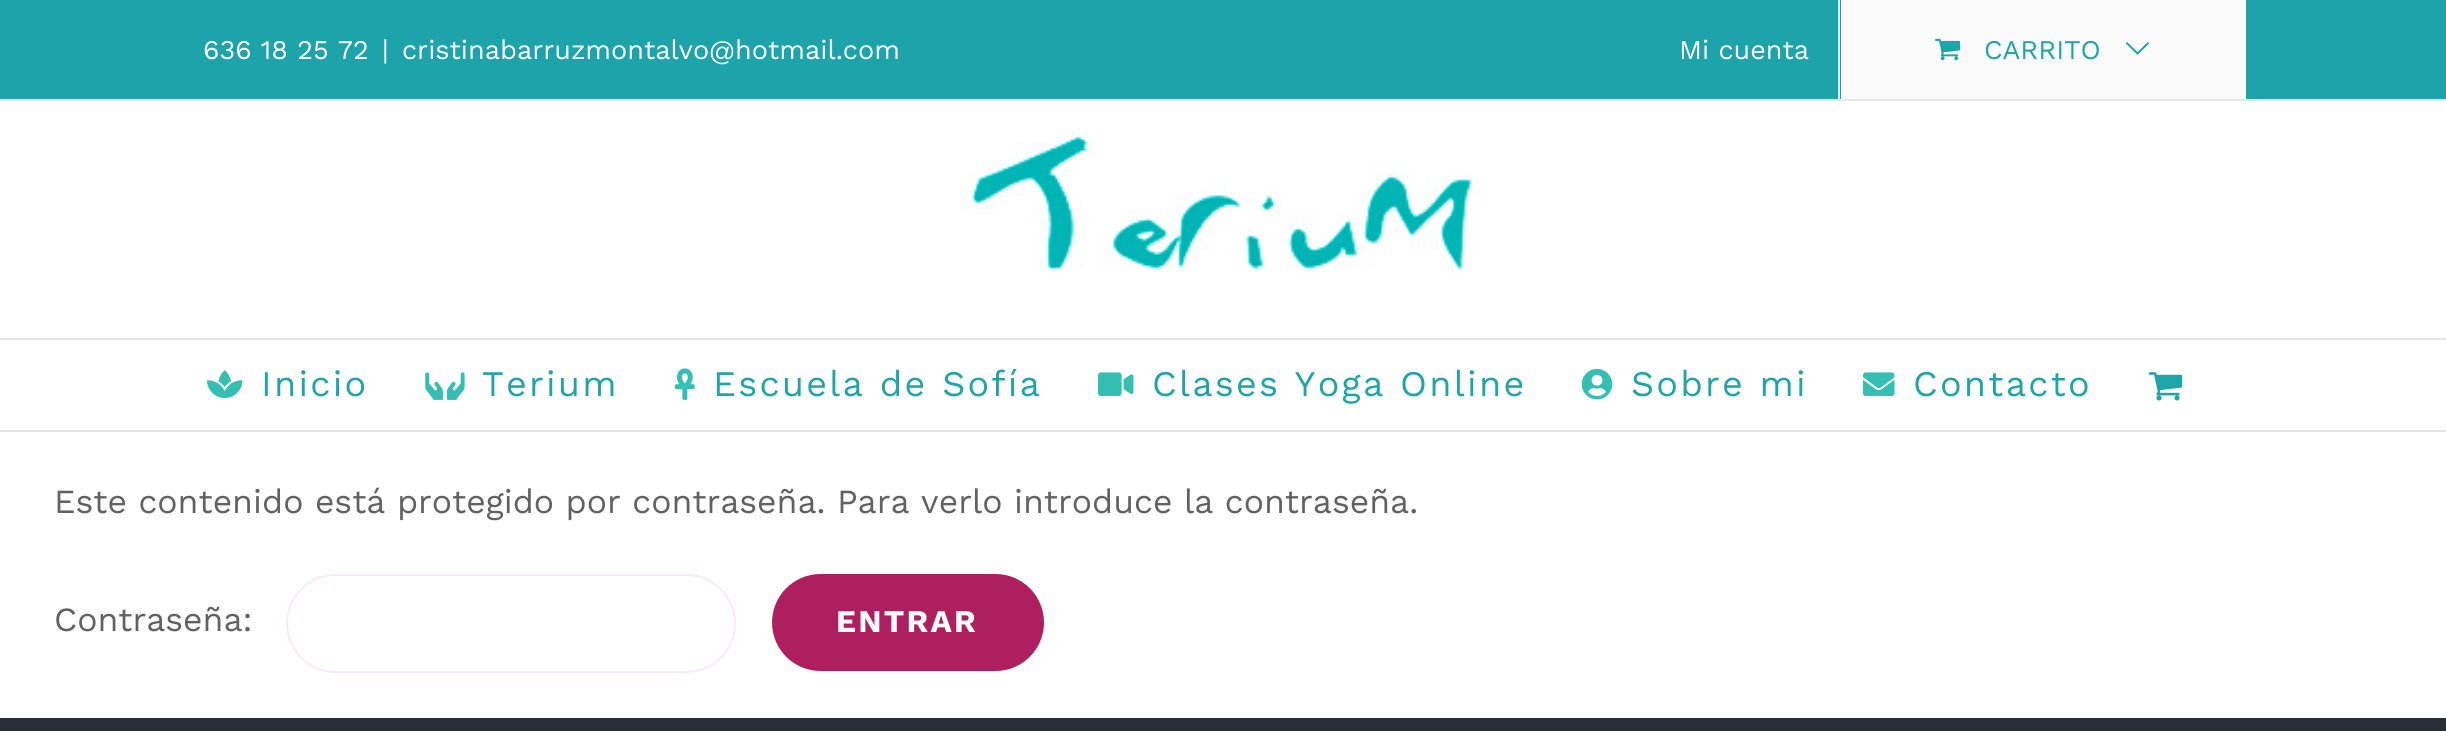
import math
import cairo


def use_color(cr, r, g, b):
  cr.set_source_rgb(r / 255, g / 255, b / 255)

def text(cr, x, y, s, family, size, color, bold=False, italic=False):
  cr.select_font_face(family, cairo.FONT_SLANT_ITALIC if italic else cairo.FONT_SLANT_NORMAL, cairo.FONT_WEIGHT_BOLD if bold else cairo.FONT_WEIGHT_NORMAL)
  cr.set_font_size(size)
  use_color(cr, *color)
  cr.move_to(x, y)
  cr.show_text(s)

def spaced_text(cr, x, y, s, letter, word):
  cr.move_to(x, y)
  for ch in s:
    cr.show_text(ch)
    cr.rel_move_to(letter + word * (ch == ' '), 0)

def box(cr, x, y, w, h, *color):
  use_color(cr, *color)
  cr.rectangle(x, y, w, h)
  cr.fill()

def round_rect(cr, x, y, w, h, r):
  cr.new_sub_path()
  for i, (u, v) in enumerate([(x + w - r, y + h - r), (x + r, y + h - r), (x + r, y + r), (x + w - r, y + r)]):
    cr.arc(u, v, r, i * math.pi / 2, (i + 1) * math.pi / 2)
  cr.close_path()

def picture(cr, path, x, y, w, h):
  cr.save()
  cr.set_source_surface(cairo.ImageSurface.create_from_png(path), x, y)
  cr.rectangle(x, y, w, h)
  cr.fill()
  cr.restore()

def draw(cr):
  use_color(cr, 255, 255, 255)
  cr.paint()
  box(cr, 0, 0, 2446, 99, 29, 163, 170)
  box(cr, 0, 99, 2446, 2, 229, 229, 229)
  box(cr, 1838, 0, 2, 99, 229, 229, 229)
  box(cr, 1841, 0, 405, 99, 250, 250, 250)
  picture(cr, "img_01.png", 1935, 38, 26, 23)
  picture(cr, "img_02.png", 2126, 42, 23, 13)
  box(cr, 0, 338, 2446, 2, 229, 229, 229)
  picture(cr, "img_03.png", 959, 129, 521, 147)
  box(cr, 0, 430, 2446, 2, 229, 229, 229)
  picture(cr, "img_04.png", 207, 370, 36, 28)
  picture(cr, "img_05.png", 425, 372, 40, 28)
  picture(cr, "img_06.png", 675, 368, 20, 32)
  picture(cr, "img_07.png", 1098, 372, 36, 24)
  picture(cr, "img_08.png", 1581, 368, 32, 32)
  picture(cr, "img_09.png", 1863, 372, 32, 24)
  picture(cr, "img_10.png", 2148, 372, 35, 29)
  round_rect(cr, 287, 575, 448, 97, 48.5)
  use_color(cr, 247, 235, 249)
  cr.stroke()
  use_color(cr, 173, 31, 95)
  round_rect(cr, 772, 574, 272, 97, 48.5)
  cr.fill()
  box(cr, 0, 718, 2446, 13, 41, 47, 54)
  text(cr, 203, 59, "636 18 25 72", "Work Sans", 27, (255, 255, 255))
  text(cr, 382, 59, "|", "Work Sans", 27, (255, 255, 255))
  text(cr, 402, 59, "cristinabarruzmontalvo@hotmail.com", "Work Sans", 27, (255, 255, 255))
  text(cr, 1679, 59, "Mi cuenta", "Work Sans", 27, (255, 255, 255))
  text(cr, 1984, 59, "CARRITO", "Work Sans", 27, (30, 165, 168))
  cr.set_font_size(36)
  spaced_text(cr, 261, 396, "Inicio", 2.25, 0)
  spaced_text(cr, 482, 396, "Terium", 2.25, 0)
  spaced_text(cr, 713, 396, "Escuela de Sofía", 2.25, 0)
  spaced_text(cr, 1152, 396, "Clases Yoga Online", 2.25, 0)
  spaced_text(cr, 1631, 396, "Sobre mi", 2.25, 0)
  spaced_text(cr, 1913, 396, "Contacto", 2.25, 0)
  text(cr, 54, 513, "Este contenido está protegido por contraseña. Para verlo introduce la contraseña.", "Work Sans", 33.75, (97, 97, 97))
  text(cr, 54, 631, "Contraseña:", "Work Sans", 33.75, (97, 97, 97))
  cr.select_font_face("Work Sans", cairo.FONT_SLANT_NORMAL, cairo.FONT_WEIGHT_BOLD)
  cr.set_font_size(31.5)
  use_color(cr, 255, 255, 255)
  spaced_text(cr, 836, 632, "ENTRAR", 2.25, 0)


surface = cairo.ImageSurface(cairo.FORMAT_RGB24, 2446, 731)
cr = cairo.Context(surface)
options = cairo.FontOptions()
options.set_hint_metrics(cairo.HINT_METRICS_OFF)
options.set_hint_style(cairo.HINT_STYLE_NONE)
cr.set_font_options(options)
cr.set_miter_limit(4)
draw(cr)
surface.write_to_png("out.png")
